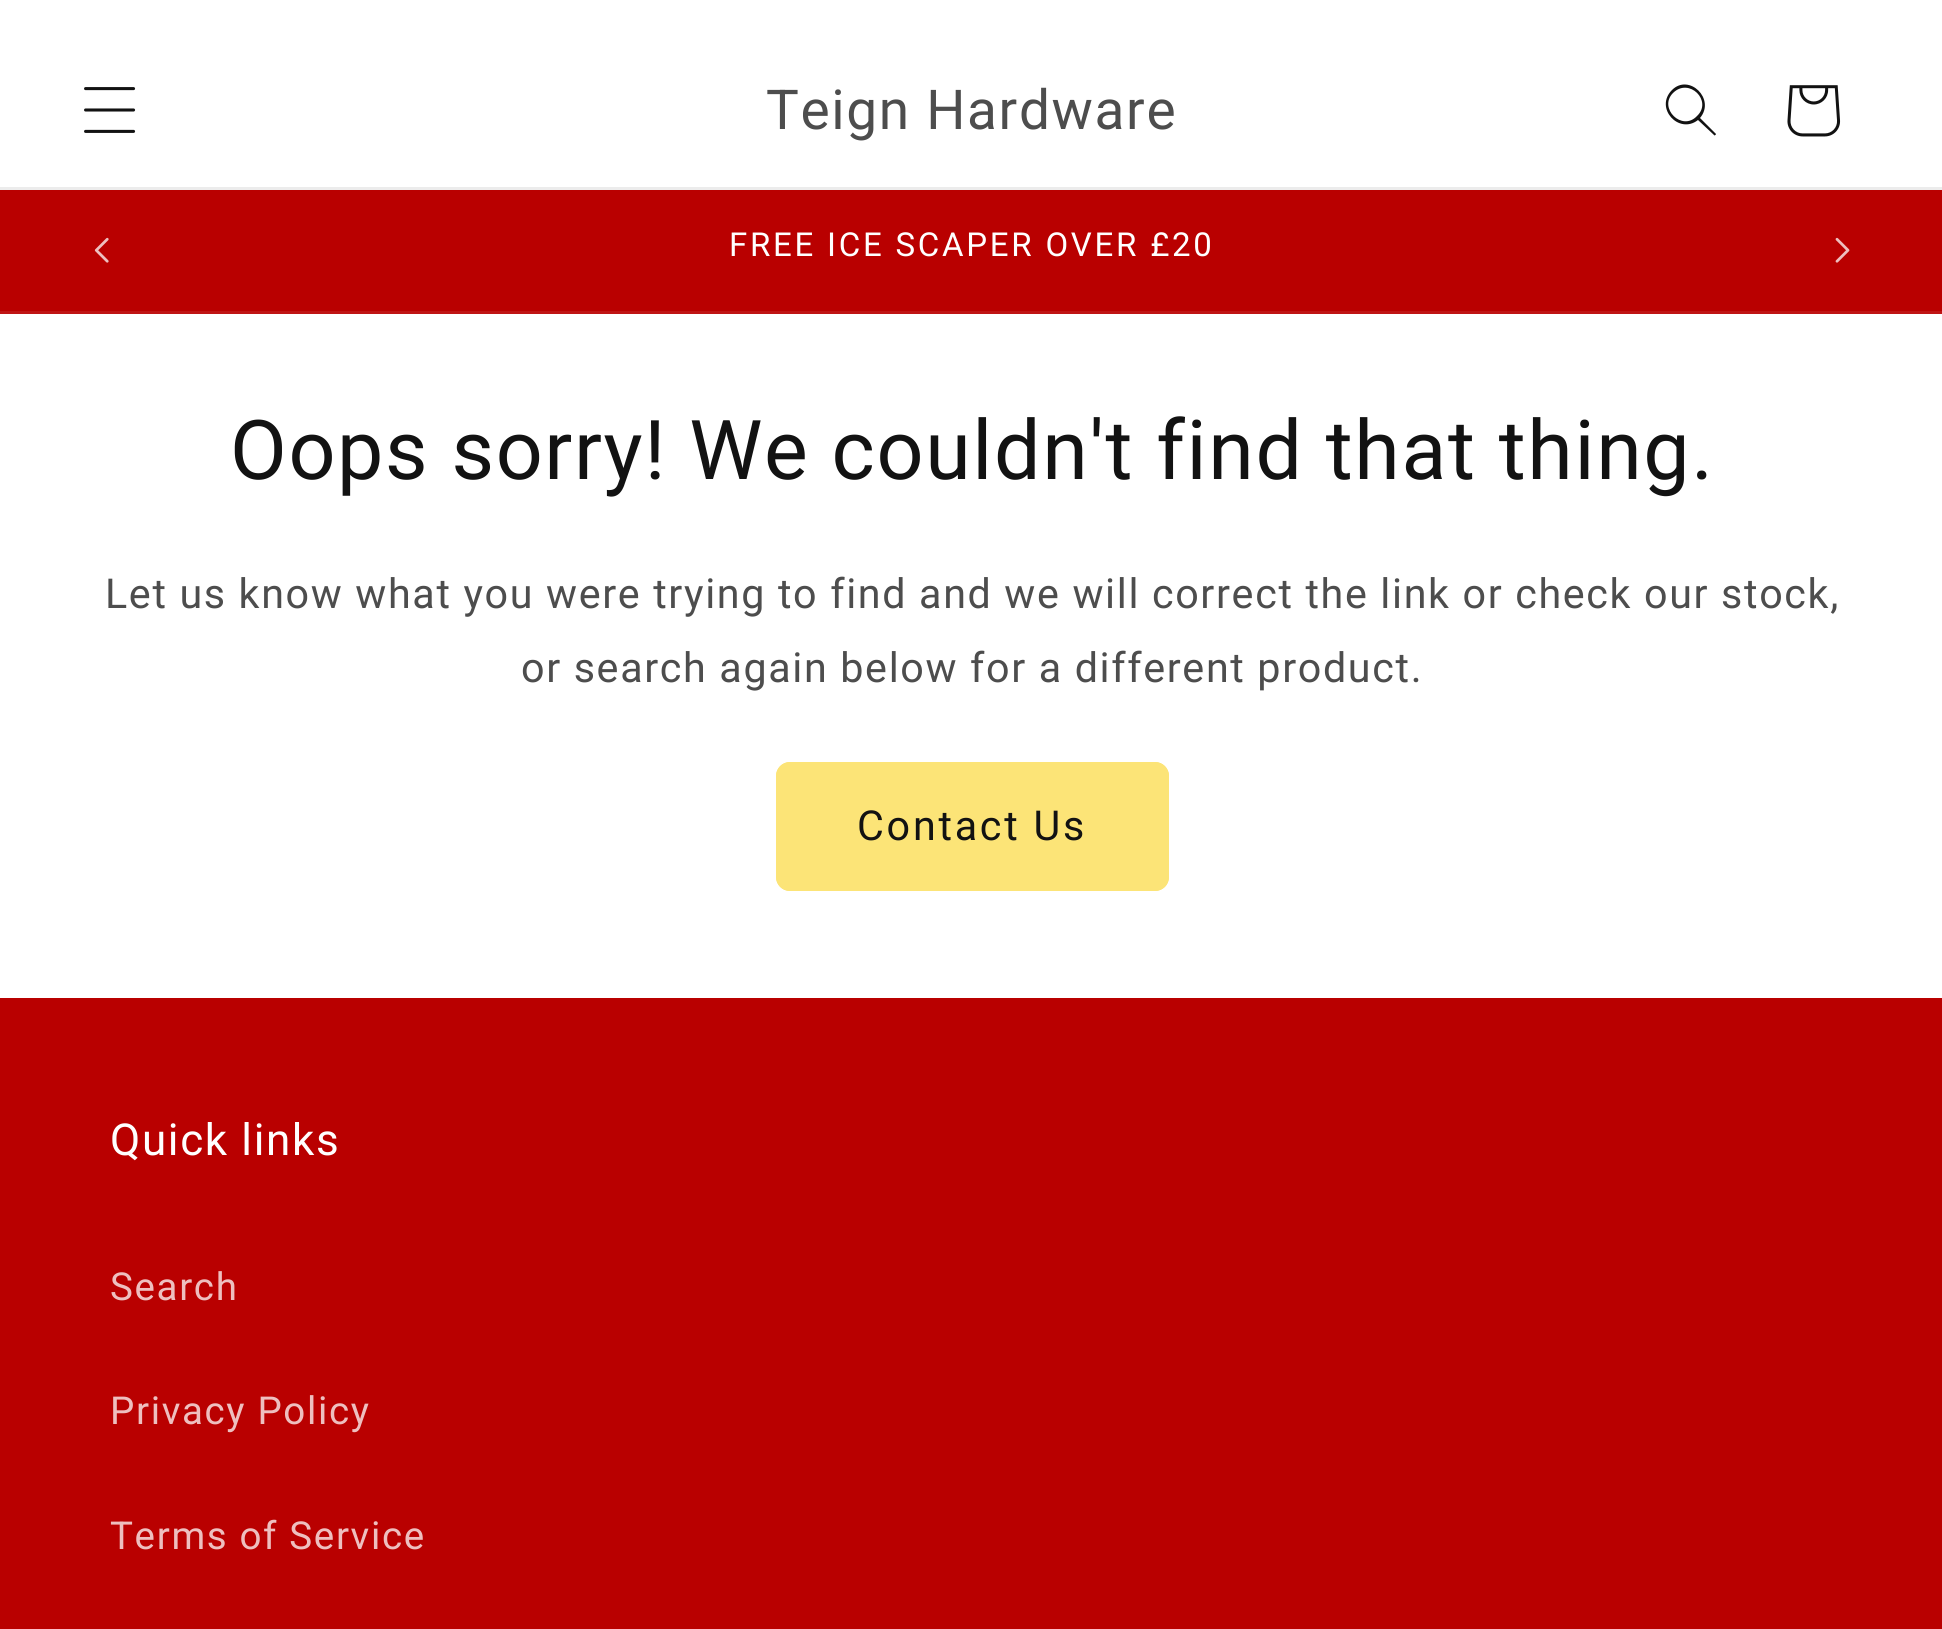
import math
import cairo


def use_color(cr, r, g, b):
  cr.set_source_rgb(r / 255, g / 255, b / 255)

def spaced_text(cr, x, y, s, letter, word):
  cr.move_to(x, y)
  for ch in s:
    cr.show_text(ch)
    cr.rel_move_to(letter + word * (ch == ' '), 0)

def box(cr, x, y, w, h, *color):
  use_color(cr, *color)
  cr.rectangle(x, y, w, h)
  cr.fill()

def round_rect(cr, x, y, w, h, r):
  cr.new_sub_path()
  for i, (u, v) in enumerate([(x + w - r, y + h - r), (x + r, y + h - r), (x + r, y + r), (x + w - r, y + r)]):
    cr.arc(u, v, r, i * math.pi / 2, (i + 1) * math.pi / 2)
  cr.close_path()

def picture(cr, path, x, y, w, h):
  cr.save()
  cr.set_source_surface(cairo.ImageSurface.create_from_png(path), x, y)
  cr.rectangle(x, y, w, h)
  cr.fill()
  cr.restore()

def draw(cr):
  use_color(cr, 255, 255, 255)
  cr.paint()
  box(cr, 0, 187, 1942, 3, 236, 236, 236)
  picture(cr, "img_01.png", 84, 87, 52, 46)
  use_color(cr, 18, 18, 18)
  cr.set_fill_rule(cairo.FILL_RULE_EVEN_ODD)
  cr.new_path()
  cr.move_to(1697, 116)
  cr.curve_to(1682, 132, 1658, 108, 1673, 93)
  cr.curve_to(1689, 77, 1713, 101, 1697, 116)
  cr.move_to(1698, 120)
  cr.curve_to(1679, 135, 1654, 108, 1672, 90)
  cr.curve_to(1689, 73, 1716, 99, 1700, 118)
  cr.line_to(1716, 134)
  cr.curve_to(1716, 135, 1714, 136, 1714, 135)
  cr.close_path()
  cr.fill()
  picture(cr, "img_02.png", 1787, 85, 54, 52)
  box(cr, 0, 190, 1942, 121, 185, 0, 0)
  box(cr, 0, 311, 1942, 3, 191, 20, 20)
  picture(cr, "img_03.png", 94, 237, 15, 26)
  picture(cr, "img_04.png", 1835, 237, 15, 26)
  use_color(cr, 252, 228, 119)
  round_rect(cr, 776, 762, 393, 129, 14)
  cr.fill()
  round_rect(cr, 777.5, 763.5, 390, 126, 12.5)
  cr.set_line_width(3)
  cr.stroke()
  box(cr, 0, 998, 1942, 631, 185, 0, 0)
  cr.select_font_face("Roboto")
  cr.set_font_size(55)
  use_color(cr, 77, 77, 77)
  spaced_text(cr, 766, 129, "Teign Hardware", 1.65, 0)
  cr.set_font_size(33)
  use_color(cr, 255, 255, 255)
  spaced_text(cr, 729, 256, "FREE ICE SCAPER OVER £20", 2.75, 0)
  cr.set_font_size(82.5)
  use_color(cr, 18, 18, 18)
  spaced_text(cr, 230, 479, "Oops sorry! We couldn't find that thing.", 1.65, 0)
  cr.set_font_size(41.25)
  use_color(cr, 77, 77, 77)
  spaced_text(cr, 105, 608, "Let us know what you were trying to find and we will correct the link or check our stock,", 1.65, 0)
  spaced_text(cr, 521, 682, "or search again below for a different product.", 1.65, 0)
  use_color(cr, 18, 18, 18)
  spaced_text(cr, 857, 840, "Contact Us", 2.75, 0)
  cr.set_font_size(44)
  use_color(cr, 255, 255, 255)
  spaced_text(cr, 110, 1155, "Quick links", 1.65, 0)
  cr.set_font_size(38.5)
  use_color(cr, 238, 191, 191)
  spaced_text(cr, 110, 1300, "Search", 1.65, 0)
  spaced_text(cr, 110, 1424, "Privacy Policy", 1.65, 0)
  spaced_text(cr, 110, 1549, "Terms of Service", 1.65, 0)


surface = cairo.ImageSurface(cairo.FORMAT_RGB24, 1942, 1629)
cr = cairo.Context(surface)
options = cairo.FontOptions()
options.set_hint_metrics(cairo.HINT_METRICS_OFF)
options.set_hint_style(cairo.HINT_STYLE_NONE)
cr.set_font_options(options)
cr.set_miter_limit(4)
draw(cr)
surface.write_to_png("out.png")
